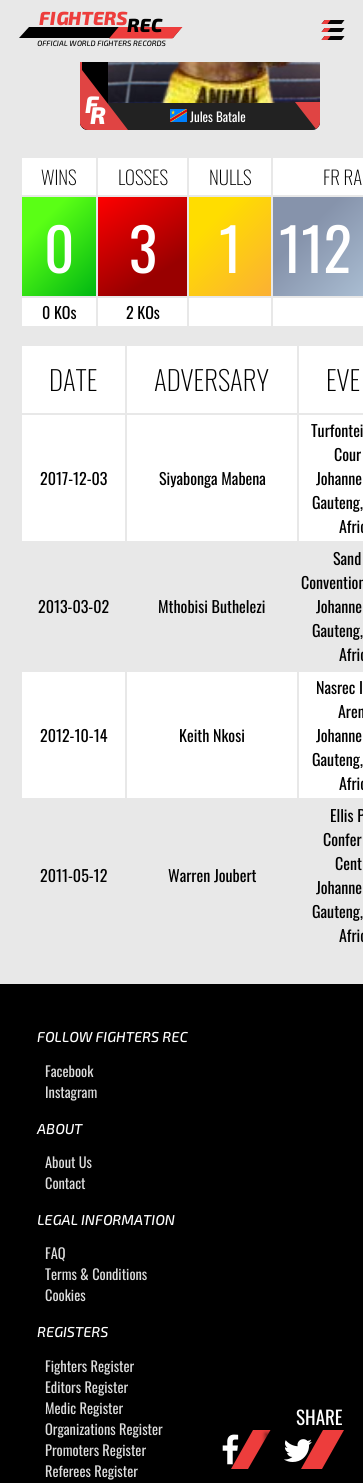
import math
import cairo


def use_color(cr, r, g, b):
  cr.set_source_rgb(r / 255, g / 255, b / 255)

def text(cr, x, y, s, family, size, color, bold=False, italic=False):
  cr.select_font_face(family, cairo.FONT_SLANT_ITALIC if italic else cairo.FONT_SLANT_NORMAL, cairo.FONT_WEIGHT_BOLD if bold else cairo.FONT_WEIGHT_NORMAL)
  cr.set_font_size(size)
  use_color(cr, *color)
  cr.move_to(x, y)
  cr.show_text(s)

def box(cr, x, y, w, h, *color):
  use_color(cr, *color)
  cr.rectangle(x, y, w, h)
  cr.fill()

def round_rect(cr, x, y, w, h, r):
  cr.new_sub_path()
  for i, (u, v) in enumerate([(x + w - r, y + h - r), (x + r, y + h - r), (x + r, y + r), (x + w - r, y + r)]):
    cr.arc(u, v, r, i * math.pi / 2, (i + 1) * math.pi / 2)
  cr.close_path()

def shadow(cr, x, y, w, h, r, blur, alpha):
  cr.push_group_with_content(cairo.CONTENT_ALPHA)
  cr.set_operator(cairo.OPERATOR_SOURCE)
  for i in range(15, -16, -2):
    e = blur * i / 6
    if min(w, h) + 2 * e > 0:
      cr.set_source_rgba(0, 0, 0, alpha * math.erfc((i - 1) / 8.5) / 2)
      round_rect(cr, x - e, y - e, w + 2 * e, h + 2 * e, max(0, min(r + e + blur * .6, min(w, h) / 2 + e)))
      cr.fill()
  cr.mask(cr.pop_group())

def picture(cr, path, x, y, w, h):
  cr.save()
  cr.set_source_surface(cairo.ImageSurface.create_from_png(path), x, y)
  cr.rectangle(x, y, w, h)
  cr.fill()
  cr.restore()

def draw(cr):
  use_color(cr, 0, 0, 0)
  cr.paint()
  box(cr, 0, 62, 363, 922, 232, 232, 232)
  picture(cr, "img_01.png", 80, 62, 240, 68)
  use_color(cr, 34, 34, 34)
  cr.new_path()
  cr.move_to(80, 103)
  cr.line_to(320, 103)
  cr.line_to(320, 122)
  cr.curve_to(320, 126.5, 316.5, 130, 312, 130)
  cr.line_to(88, 130)
  cr.curve_to(83.5, 130, 80, 126.5, 80, 122)
  cr.close_path()
  cr.fill()
  cr.save()
  round_rect(cr, 80, -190, 240, 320, 8)
  cr.clip()
  use_color(cr, 0, 0, 0)
  cr.new_path()
  cr.move_to(88, -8)
  cr.line_to(108, -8)
  cr.line_to(108, 129)
  cr.line_to(80, 129)
  cr.line_to(80, 0)
  cr.curve_to(80, -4.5, 83.5, -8, 88, -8)
  cr.close_path()
  cr.fill()
  cr.restore()
  box(cr, 0, 0, 363, 62, 232, 232, 232)
  use_color(cr, 0, 0, 0)
  cr.new_path()
  cr.move_to(29, 27)
  cr.line_to(182, 27)
  cr.line_to(173, 38)
  cr.line_to(19, 38)
  cr.close_path()
  cr.fill()
  cr.save()
  cr.new_path()
  cr.move_to(29, 27)
  cr.line_to(182.5, 27)
  cr.line_to(172.5, 38.5)
  cr.line_to(19, 38.5)
  cr.close_path()
  cr.clip()
  cr.new_path()
  cr.move_to(196.5, -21.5)
  cr.line_to(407, -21.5)
  cr.line_to(311, 93)
  cr.line_to(100.5, 93)
  cr.close_path()
  use_color(cr, 237, 61, 60)
  cr.set_line_width(57)
  cr.stroke()
  cr.restore()
  use_color(cr, 5, 5, 5)
  cr.new_path()
  cr.move_to(324.5, 20)
  cr.line_to(344.5, 20)
  cr.line_to(341.5, 24)
  cr.line_to(321.5, 24)
  cr.close_path()
  cr.fill()
  use_color(cr, 237, 61, 60)
  cr.new_path()
  cr.move_to(324.5, 20)
  cr.line_to(330.5, 20)
  cr.line_to(327.5, 24)
  cr.line_to(321.5, 24)
  cr.close_path()
  cr.fill()
  use_color(cr, 5, 5, 5)
  cr.new_path()
  cr.move_to(324.5, 28)
  cr.line_to(344.5, 28)
  cr.line_to(341.5, 32)
  cr.line_to(321.5, 32)
  cr.close_path()
  cr.fill()
  use_color(cr, 237, 61, 60)
  cr.new_path()
  cr.move_to(324.5, 28)
  cr.line_to(330.5, 28)
  cr.line_to(327.5, 32)
  cr.line_to(321.5, 32)
  cr.close_path()
  cr.fill()
  use_color(cr, 5, 5, 5)
  cr.new_path()
  cr.move_to(324.5, 36)
  cr.line_to(344.5, 36)
  cr.line_to(341.5, 40)
  cr.line_to(321.5, 40)
  cr.close_path()
  cr.fill()
  use_color(cr, 237, 61, 60)
  cr.new_path()
  cr.move_to(324.5, 36)
  cr.line_to(330.5, 36)
  cr.line_to(327.5, 40)
  cr.line_to(321.5, 40)
  cr.close_path()
  cr.fill()
  cr.save()
  round_rect(cr, 80, -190, 240, 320, 8)
  cr.clip()
  box(cr, 80, 62, 2, 67, 224, 68, 67)
  cr.restore()
  picture(cr, "img_02.png", 161, 62, 132, 41)
  use_color(cr, 224, 68, 67)
  cr.new_path()
  cr.move_to(88, 130)
  cr.line_to(128, 130)
  cr.line_to(82, 70)
  cr.line_to(80, 70)
  cr.line_to(80, 122)
  cr.curve_to(80, 126, 84, 130, 88, 130)
  cr.close_path()
  cr.fill()
  picture(cr, "img_03.png", 170, 109, 17, 13)
  cr.new_path()
  cr.move_to(295, 102)
  cr.line_to(320, 102)
  cr.line_to(320, 122)
  cr.curve_to(320, 125, 318.5, 127.5, 316, 129)
  cr.close_path()
  cr.fill()
  box(cr, 22, 158, 74, 37, 255, 255, 255)
  box(cr, 98, 158, 89, 37, 255, 255, 255)
  box(cr, 189, 158, 82, 37, 255, 255, 255)
  box(cr, 273, 158, 90, 37, 255, 255, 255)
  gradient = cairo.LinearGradient(102, 290, 16, 203)
  gradient.add_color_stop_rgba(0, 0, 0.718, 0.071, 1)
  gradient.add_color_stop_rgba(0.74, 0.353, 1, 0.082, 1)
  cr.set_source(gradient)
  cr.rectangle(22, 197, 74, 99)
  cr.fill()
  gradient = cairo.LinearGradient(107, 191, 178, 302)
  gradient.add_color_stop_rgba(0, 1, 0, 0, 1)
  gradient.add_color_stop_rgba(0.74, 0.6, 0, 0, 1)
  cr.set_source(gradient)
  cr.rectangle(98, 197, 89, 99)
  cr.fill()
  gradient = cairo.LinearGradient(275, 292, 185, 201)
  gradient.add_color_stop_rgba(0, 0.984, 0.69, 0.204, 1)
  gradient.add_color_stop_rgba(0.74, 1, 0.867, 0, 1)
  cr.set_source(gradient)
  cr.rectangle(189, 197, 82, 99)
  cr.fill()
  gradient = cairo.LinearGradient(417, 311, 288, 182)
  gradient.add_color_stop_rgba(0, 0.741, 0.831, 0.906, 1)
  gradient.add_color_stop_rgba(0.74, 0.525, 0.576, 0.671, 1)
  cr.set_source(gradient)
  cr.rectangle(273, 197, 90, 99)
  cr.fill()
  box(cr, 22, 298, 74, 28, 255, 255, 255)
  box(cr, 98, 298, 89, 28, 255, 255, 255)
  box(cr, 189, 298, 82, 28, 255, 255, 255)
  box(cr, 273, 298, 90, 28, 255, 255, 255)
  box(cr, 22, 346, 103, 67, 255, 255, 255)
  box(cr, 127, 346, 170, 67, 255, 255, 255)
  box(cr, 299, 346, 64, 67, 255, 255, 255)
  box(cr, 22, 415, 103, 126, 255, 255, 255)
  box(cr, 127, 415, 170, 126, 255, 255, 255)
  box(cr, 299, 415, 64, 126, 255, 255, 255)
  box(cr, 22, 672, 103, 126, 255, 255, 255)
  box(cr, 127, 672, 170, 126, 255, 255, 255)
  box(cr, 299, 672, 64, 126, 255, 255, 255)
  use_color(cr, 237, 61, 60)
  cr.new_path()
  cr.move_to(253, 1430)
  cr.line_to(231, 1469)
  cr.line_to(248, 1469)
  cr.line_to(270.5, 1430)
  cr.close_path()
  cr.fill()
  picture(cr, "img_04.png", 222, 1434, 17, 31)
  cr.save()
  cr.set_fill_rule(cairo.FILL_RULE_EVEN_ODD)
  cr.new_path()
  cr.move_to(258, 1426)
  cr.line_to(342, 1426)
  cr.line_to(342, 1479)
  cr.line_to(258, 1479)
  cr.close_path()
  cr.move_to(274.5, 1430)
  cr.line_to(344.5, 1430)
  cr.line_to(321.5, 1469)
  cr.line_to(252, 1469)
  cr.close_path()
  cr.clip()
  use_color(cr, 0, 0, 0)
  shadow(cr, 265, 1433, 70, 39, 0, 2, 0.5)
  cr.restore()
  cr.new_path()
  cr.move_to(323, 1430)
  cr.line_to(301, 1469)
  cr.line_to(322, 1469)
  cr.line_to(344, 1430)
  cr.close_path()
  cr.fill()
  picture(cr, "img_05.png", 284, 1439, 28, 23)
  text(cr, 39, 25, "FIGHTERS", "Exo 2 ExtraBold", 19, (237, 61, 60), italic=True)
  text(cr, 127, 32, "REC", "Exo 2 ExtraBold", 19, (0, 0, 0), italic=True)
  text(cr, 37, 46, "OFFICIAL WORLD FIGHTERS RECORDS", "Exo 2 Medium", 7.7, (0, 0, 0), italic=True)
  text(cr, 85, 113, "F", "Exo 2 ExtraBold", 24, (255, 255, 255), italic=True)
  text(cr, 90, 124, "R", "Exo 2 ExtraBold", 24, (255, 255, 255), italic=True)
  text(cr, 190, 122, "Jules Batale", "Oswald", 13, (255, 255, 255))
  text(cr, 41, 185, "WINS", "Oswald ExtraLight", 19, (0, 0, 0))
  text(cr, 118, 185, "LOSSES", "Oswald ExtraLight", 19, (0, 0, 0))
  text(cr, 209, 185, "NULLS", "Oswald ExtraLight", 19, (0, 0, 0))
  text(cr, 323, 185, "FR RA", "Oswald ExtraLight", 19, (0, 0, 0))
  text(cr, 44, 273, "0", "Oswald", 59, (255, 255, 255))
  text(cr, 129, 273, "3", "Oswald", 59, (255, 255, 255))
  text(cr, 219, 273, "1", "Oswald", 59, (255, 255, 255))
  text(cr, 279, 273, "112", "Oswald", 59, (255, 255, 255))
  text(cr, 42, 319, "0 KOs", "Oswald", 16, (0, 0, 0))
  text(cr, 126, 319, "2 KOs", "Oswald", 16, (0, 0, 0))
  text(cr, 49, 391, "DATE", "Oswald ExtraLight", 27, (0, 0, 0))
  text(cr, 154, 391, "ADVERSARY", "Oswald ExtraLight", 27, (0, 0, 0))
  text(cr, 326, 391, "EVE", "Oswald ExtraLight", 27, (0, 0, 0))
  text(cr, 40, 485, "2017-12-03", "Oswald", 16, (0, 0, 0))
  text(cr, 159, 485, "Siyabonga Mabena", "Oswald", 16, (0, 0, 0))
  text(cr, 311, 437, "Turfontei", "Oswald", 16, (0, 0, 0))
  text(cr, 334, 461, "Cour", "Oswald", 16, (0, 0, 0))
  text(cr, 316, 485, "Johanne", "Oswald", 16, (0, 0, 0))
  text(cr, 312, 509, "Gauteng,", "Oswald", 16, (0, 0, 0))
  text(cr, 339, 533, "Afric", "Oswald", 16, (0, 0, 0))
  text(cr, 38, 613, "2013-03-02", "Oswald", 16, (0, 0, 0))
  text(cr, 158, 613, "Mthobisi Buthelezi", "Oswald", 16, (0, 0, 0))
  text(cr, 333, 565, "Sand", "Oswald", 16, (0, 0, 0))
  text(cr, 301, 589, "Convention", "Oswald", 16, (0, 0, 0))
  text(cr, 316, 613, "Johanne", "Oswald", 16, (0, 0, 0))
  text(cr, 312, 637, "Gauteng,", "Oswald", 16, (0, 0, 0))
  text(cr, 339, 661, "Afric", "Oswald", 16, (0, 0, 0))
  text(cr, 40, 742, "2012-10-14", "Oswald", 16, (0, 0, 0))
  text(cr, 179, 742, "Keith Nkosi", "Oswald", 16, (0, 0, 0))
  text(cr, 316, 694, "Nasrec I", "Oswald", 16, (0, 0, 0))
  text(cr, 338, 718, "Aren", "Oswald", 16, (0, 0, 0))
  text(cr, 316, 742, "Johanne", "Oswald", 16, (0, 0, 0))
  text(cr, 312, 766, "Gauteng,", "Oswald", 16, (0, 0, 0))
  text(cr, 339, 790, "Afric", "Oswald", 16, (0, 0, 0))
  text(cr, 40, 882, "2011-05-12", "Oswald", 16, (0, 0, 0))
  text(cr, 168, 882, "Warren Joubert", "Oswald", 16, (0, 0, 0))
  text(cr, 330, 822, "Ellis P", "Oswald", 16, (0, 0, 0))
  text(cr, 323, 846, "Confer", "Oswald", 16, (0, 0, 0))
  text(cr, 335, 870, "Cent", "Oswald", 16, (0, 0, 0))
  text(cr, 316, 894, "Johanne", "Oswald", 16, (0, 0, 0))
  text(cr, 312, 918, "Gauteng,", "Oswald", 16, (0, 0, 0))
  text(cr, 339, 942, "Afric", "Oswald", 16, (0, 0, 0))
  text(cr, 37, 1042, "FOLLOW FIGHTERS REC", "Exo 2 Medium", 14.4, (255, 255, 255), italic=True)
  text(cr, 45, 1077, "Facebook", "Oswald", 14.4, (221, 221, 221))
  text(cr, 45, 1098, "Instagram", "Oswald", 14.4, (221, 221, 221))
  text(cr, 37, 1134, "ABOUT", "Exo 2 Medium", 14.4, (255, 255, 255), italic=True)
  text(cr, 45, 1168, "About Us", "Oswald", 14.4, (221, 221, 221))
  text(cr, 45, 1189, "Contact", "Oswald", 14.4, (221, 221, 221))
  text(cr, 37, 1225, "LEGAL INFORMATION", "Exo 2 Medium", 14.4, (255, 255, 255), italic=True)
  text(cr, 45, 1259, "FAQ", "Oswald", 14.4, (221, 221, 221))
  text(cr, 45, 1280, "Terms & Conditions", "Oswald", 14.4, (221, 221, 221))
  text(cr, 45, 1301, "Cookies", "Oswald", 14.4, (221, 221, 221))
  text(cr, 37, 1337, "REGISTERS", "Exo 2 Medium", 14.4, (255, 255, 255), italic=True)
  text(cr, 45, 1372, "Fighters Register", "Oswald", 14.4, (221, 221, 221))
  text(cr, 45, 1393, "Editors Register", "Oswald", 14.4, (221, 221, 221))
  text(cr, 45, 1414, "Medic Register", "Oswald", 14.4, (221, 221, 221))
  text(cr, 45, 1435, "Organizations Register", "Oswald", 14.4, (221, 221, 221))
  text(cr, 45, 1456, "Promoters Register", "Oswald", 14.4, (221, 221, 221))
  text(cr, 45, 1477, "Referees Register", "Oswald", 14.4, (221, 221, 221))
  text(cr, 296, 1425, "SHARE", "Oswald", 19, (255, 255, 255))


surface = cairo.ImageSurface(cairo.FORMAT_RGB24, 363, 1483)
cr = cairo.Context(surface)
options = cairo.FontOptions()
options.set_hint_metrics(cairo.HINT_METRICS_OFF)
options.set_hint_style(cairo.HINT_STYLE_NONE)
cr.set_font_options(options)
cr.set_miter_limit(4)
draw(cr)
surface.write_to_png("out.png")
